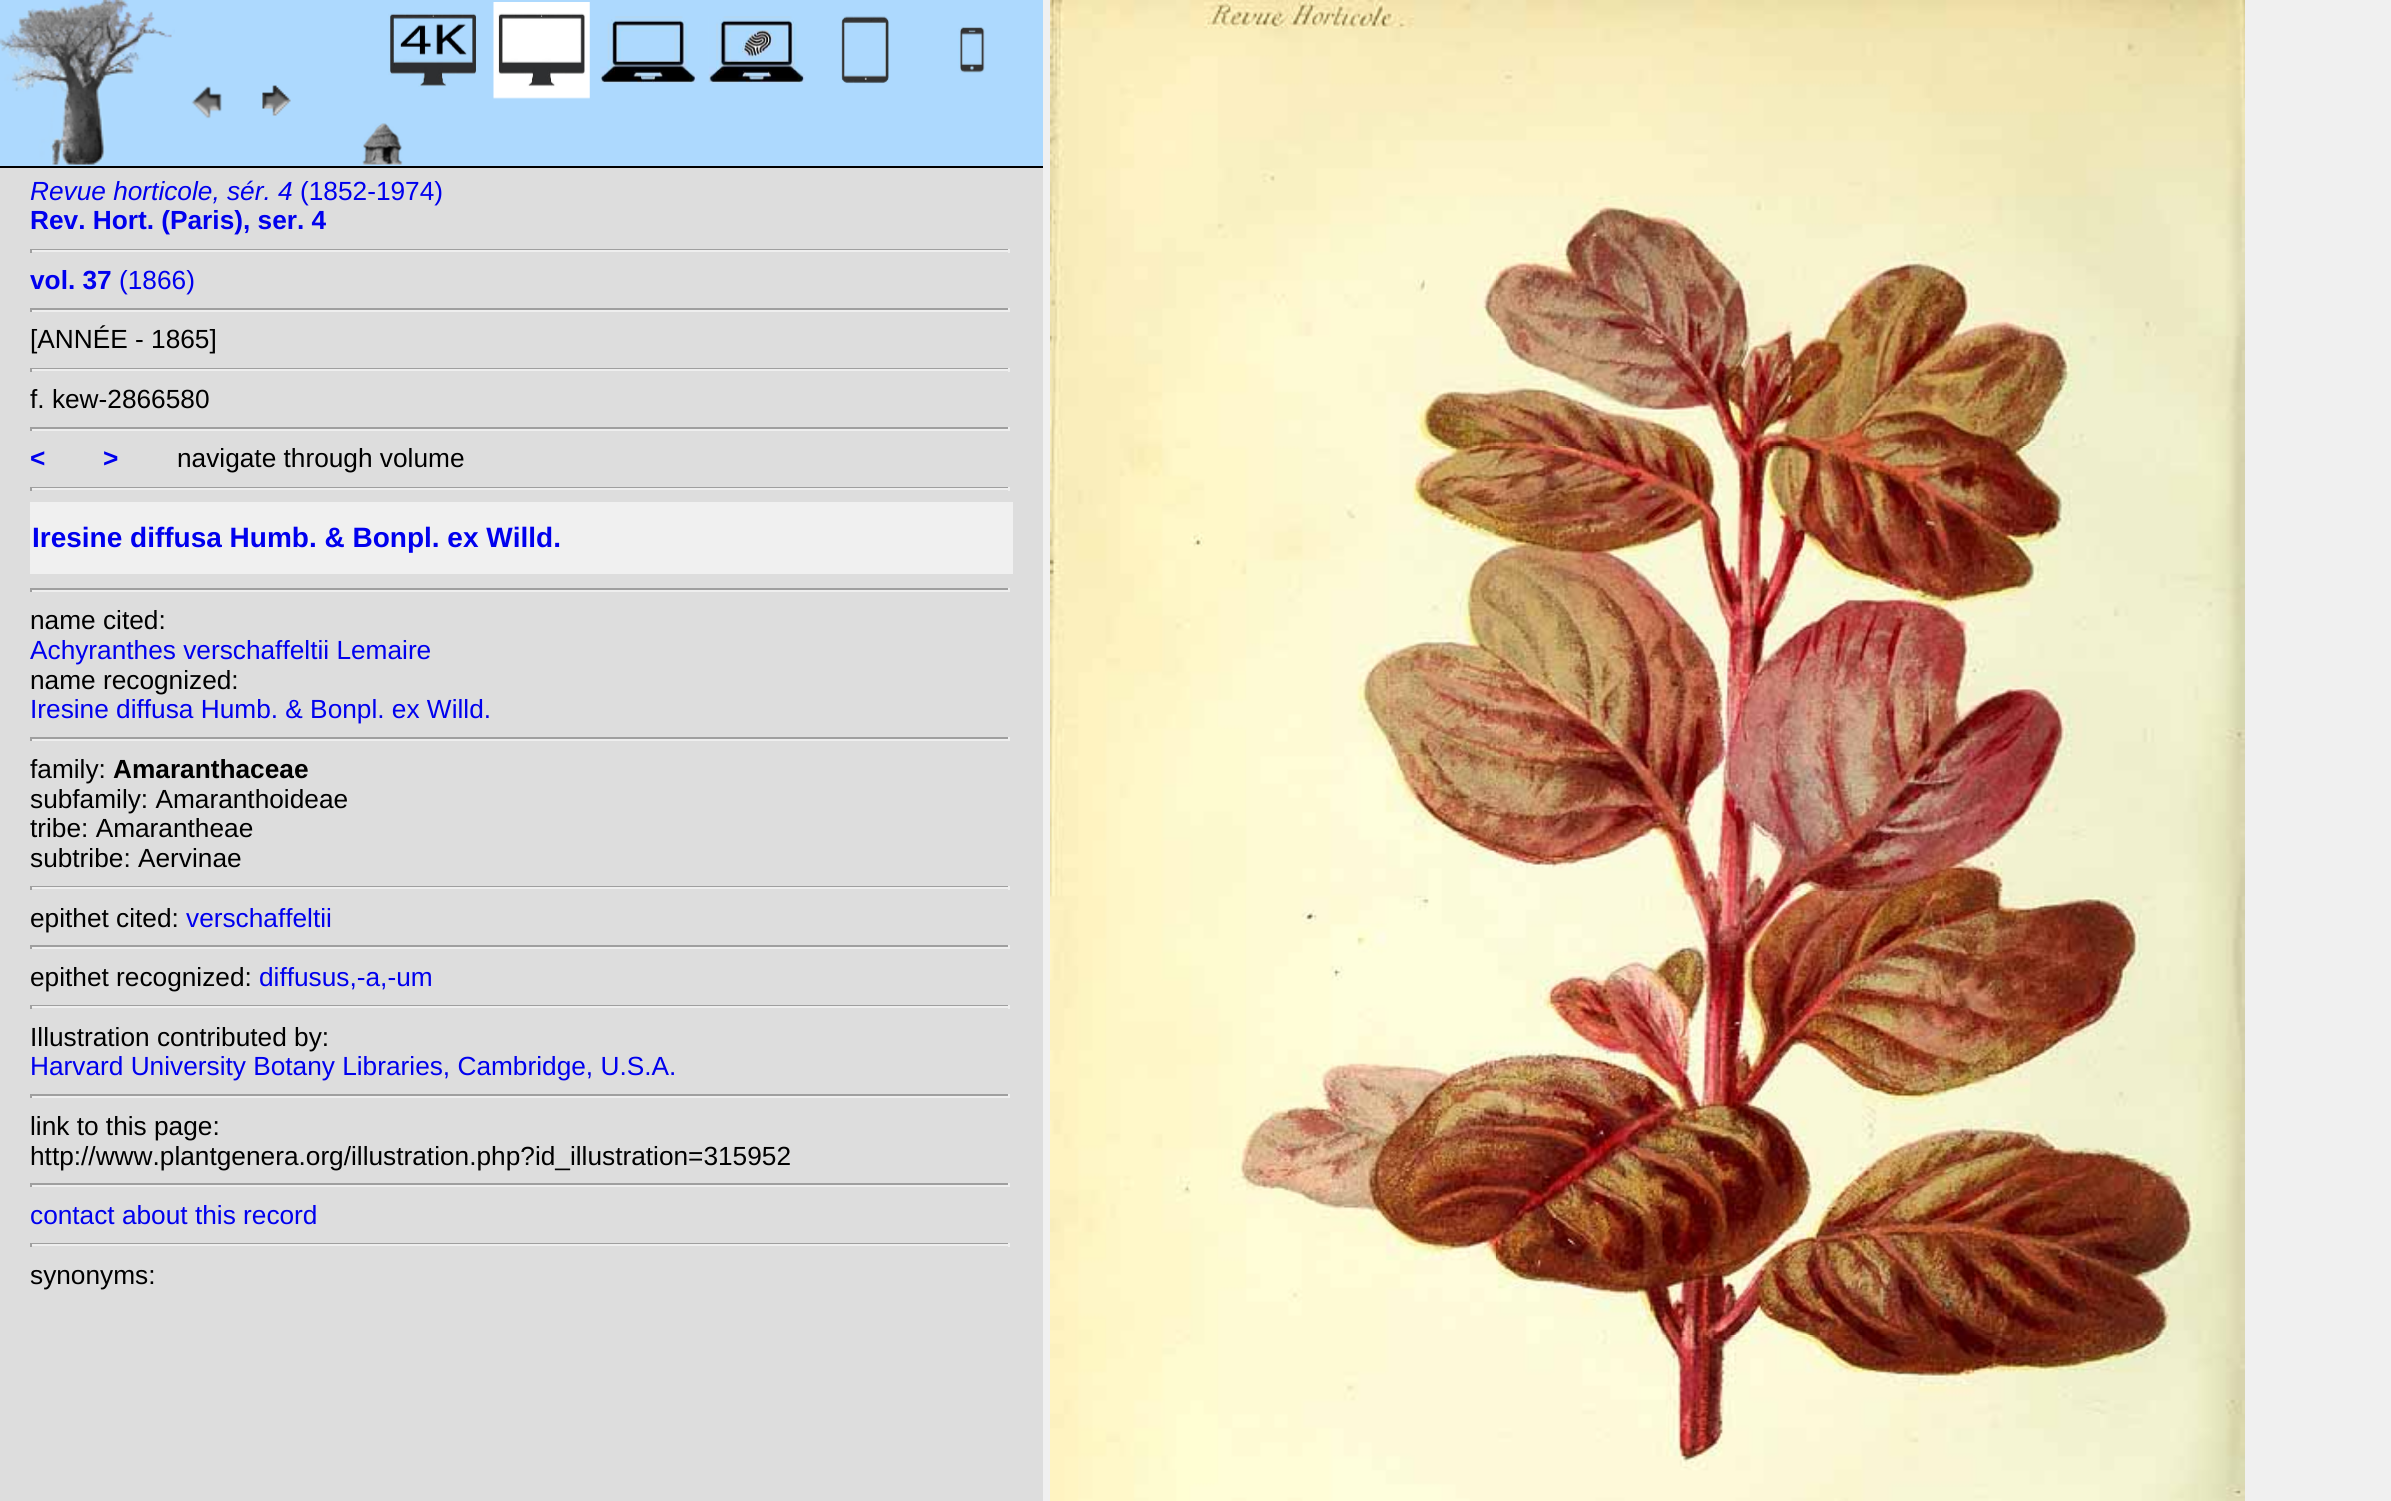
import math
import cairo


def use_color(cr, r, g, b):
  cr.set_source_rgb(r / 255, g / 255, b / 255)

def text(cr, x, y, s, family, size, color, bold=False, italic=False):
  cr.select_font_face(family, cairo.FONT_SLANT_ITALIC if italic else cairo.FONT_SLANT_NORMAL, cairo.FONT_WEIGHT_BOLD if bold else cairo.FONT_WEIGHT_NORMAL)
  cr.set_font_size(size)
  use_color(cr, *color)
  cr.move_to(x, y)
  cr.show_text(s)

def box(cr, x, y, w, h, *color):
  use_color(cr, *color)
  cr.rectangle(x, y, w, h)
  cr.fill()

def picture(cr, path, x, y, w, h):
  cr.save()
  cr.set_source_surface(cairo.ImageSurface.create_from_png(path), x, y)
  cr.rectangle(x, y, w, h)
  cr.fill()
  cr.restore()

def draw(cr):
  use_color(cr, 240, 240, 240)
  cr.paint()
  box(cr, 0, 168, 1043, 1333, 221, 221, 221)
  box(cr, 0, 0, 1043, 166, 173, 217, 254)
  box(cr, 0, 166, 1043, 2, 0, 0, 0)
  picture(cr, "img_01.png", 0, 0, 175, 165)
  picture(cr, "img_02.png", 191, 86, 31, 33)
  picture(cr, "img_03.png", 262, 85, 29, 31)
  picture(cr, "img_04.png", 388, 13, 89, 74)
  picture(cr, "img_05.png", 493, 2, 97, 97)
  picture(cr, "img_06.png", 600, 16, 97, 67)
  picture(cr, "img_07.png", 708, 16, 97, 67)
  picture(cr, "img_08.png", 841, 16, 48, 68)
  picture(cr, "img_09.png", 958, 27, 27, 46)
  picture(cr, "img_10.png", 362, 123, 41, 42)
  box(cr, 30, 249, 980, 1, 159, 159, 159)
  box(cr, 1008, 249, 2, 4, 238, 238, 238)
  box(cr, 30, 250, 980, 2, 238, 238, 238)
  box(cr, 30, 249, 2, 4, 159, 159, 159)
  box(cr, 30, 308, 980, 2, 159, 159, 159)
  box(cr, 1008, 308, 2, 4, 238, 238, 238)
  box(cr, 30, 310, 980, 2, 238, 238, 238)
  box(cr, 30, 308, 2, 4, 159, 159, 159)
  box(cr, 30, 368, 980, 1, 159, 159, 159)
  box(cr, 1008, 368, 2, 4, 238, 238, 238)
  box(cr, 30, 369, 980, 2, 238, 238, 238)
  box(cr, 30, 368, 2, 4, 159, 159, 159)
  box(cr, 30, 427, 980, 2, 159, 159, 159)
  box(cr, 1008, 427, 2, 4, 238, 238, 238)
  box(cr, 30, 429, 980, 2, 238, 238, 238)
  box(cr, 30, 427, 2, 4, 159, 159, 159)
  box(cr, 30, 487, 980, 1, 159, 159, 159)
  box(cr, 1008, 487, 2, 4, 238, 238, 238)
  box(cr, 30, 488, 980, 2, 238, 238, 238)
  box(cr, 30, 487, 2, 4, 159, 159, 159)
  box(cr, 30, 502, 983, 72, 240, 240, 240)
  box(cr, 30, 588, 980, 2, 159, 159, 159)
  box(cr, 1008, 588, 2, 4, 238, 238, 238)
  box(cr, 30, 590, 980, 2, 238, 238, 238)
  box(cr, 30, 588, 2, 4, 159, 159, 159)
  box(cr, 30, 737, 980, 2, 159, 159, 159)
  box(cr, 1008, 737, 2, 4, 238, 238, 238)
  box(cr, 30, 739, 980, 2, 238, 238, 238)
  box(cr, 30, 737, 2, 4, 159, 159, 159)
  box(cr, 30, 886, 980, 1, 159, 159, 159)
  box(cr, 1008, 886, 2, 4, 238, 238, 238)
  box(cr, 30, 887, 980, 2, 238, 238, 238)
  box(cr, 30, 886, 2, 4, 159, 159, 159)
  box(cr, 30, 945, 980, 2, 159, 159, 159)
  box(cr, 1008, 945, 2, 4, 238, 238, 238)
  box(cr, 30, 947, 980, 2, 238, 238, 238)
  box(cr, 30, 945, 2, 4, 159, 159, 159)
  box(cr, 30, 1005, 980, 1, 159, 159, 159)
  box(cr, 1008, 1005, 2, 4, 238, 238, 238)
  box(cr, 30, 1006, 980, 2, 238, 238, 238)
  box(cr, 30, 1005, 2, 4, 159, 159, 159)
  box(cr, 30, 1094, 980, 2, 159, 159, 159)
  box(cr, 1008, 1094, 2, 4, 238, 238, 238)
  box(cr, 30, 1096, 980, 2, 238, 238, 238)
  box(cr, 30, 1094, 2, 4, 159, 159, 159)
  box(cr, 30, 1183, 980, 2, 159, 159, 159)
  box(cr, 1008, 1183, 2, 4, 238, 238, 238)
  box(cr, 30, 1185, 980, 2, 238, 238, 238)
  box(cr, 30, 1183, 2, 4, 159, 159, 159)
  box(cr, 30, 1243, 980, 1, 159, 159, 159)
  box(cr, 1008, 1243, 2, 4, 238, 238, 238)
  box(cr, 30, 1244, 980, 2, 238, 238, 238)
  box(cr, 30, 1243, 2, 4, 159, 159, 159)
  picture(cr, "img_11.png", 1050, 0, 1195, 1501)
  text(cr, 30, 200, "Revue horticole, sér. 4", "Liberation Sans", 26.25, (0, 0, 238), italic=True)
  text(cr, 300, 200, "(1852-1974)", "Liberation Sans", 26.25, (0, 0, 238))
  text(cr, 30, 229, "Rev. Hort. (Paris), ser. 4", "Liberation Sans", 26.25, (0, 0, 238), bold=True)
  text(cr, 30, 289, "vol. 37", "Liberation Sans", 26.25, (0, 0, 238), bold=True)
  text(cr, 119, 289, "(1866)", "Liberation Sans", 26.25, (0, 0, 238))
  text(cr, 30, 348, "[ANNÉE - 1865]", "Liberation Sans", 26.25, (0, 0, 0))
  text(cr, 30, 408, "f. kew-2866580", "Liberation Sans", 26.25, (0, 0, 0))
  text(cr, 30, 467, "<", "Liberation Sans", 26.25, (0, 0, 238), bold=True)
  text(cr, 103, 467, ">", "Liberation Sans", 26.25, (0, 0, 238), bold=True)
  text(cr, 177, 467, "navigate through volume", "Liberation Sans", 26.25, (0, 0, 0))
  text(cr, 32, 547, "Iresine diffusa Humb. & Bonpl. ex Willd.", "Liberation Sans", 28, (0, 0, 238), bold=True)
  text(cr, 30, 629, "name cited:", "Liberation Sans", 26.25, (0, 0, 0))
  text(cr, 30, 659, "Achyranthes verschaffeltii Lemaire", "Liberation Sans", 26.25, (0, 0, 238))
  text(cr, 30, 689, "name recognized:", "Liberation Sans", 26.25, (0, 0, 0))
  text(cr, 30, 718, "Iresine diffusa Humb. & Bonpl. ex Willd.", "Liberation Sans", 26.25, (0, 0, 238))
  text(cr, 30, 778, "family:", "Liberation Sans", 26.25, (0, 0, 0))
  text(cr, 113, 778, "Amaranthaceae", "Liberation Sans", 26.25, (0, 0, 0), bold=True)
  text(cr, 30, 808, "subfamily: Amaranthoideae", "Liberation Sans", 26.25, (0, 0, 0))
  text(cr, 30, 837, "tribe: Amarantheae", "Liberation Sans", 26.25, (0, 0, 0))
  text(cr, 30, 867, "subtribe: Aervinae", "Liberation Sans", 26.25, (0, 0, 0))
  text(cr, 30, 927, "epithet cited:", "Liberation Sans", 26.25, (0, 0, 0))
  text(cr, 186, 927, "verschaffeltii", "Liberation Sans", 26.25, (0, 0, 238))
  text(cr, 30, 986, "epithet recognized:", "Liberation Sans", 26.25, (0, 0, 0))
  text(cr, 259, 986, "diffusus,-a,-um", "Liberation Sans", 26.25, (0, 0, 238))
  text(cr, 30, 1046, "Illustration contributed by:", "Liberation Sans", 26.25, (0, 0, 0))
  text(cr, 30, 1075, "Harvard University Botany Libraries, Cambridge, U.S.A.", "Liberation Sans", 26.25, (0, 0, 238))
  text(cr, 30, 1135, "link to this page:", "Liberation Sans", 26.25, (0, 0, 0))
  text(cr, 30, 1165, "http://www.plantgenera.org/illustration.php?id_illustration=315952", "Liberation Sans", 26.25, (0, 0, 0))
  text(cr, 30, 1224, "contact about this record", "Liberation Sans", 26.25, (0, 0, 238))
  text(cr, 30, 1284, "synonyms:", "Liberation Sans", 26.25, (0, 0, 0))


surface = cairo.ImageSurface(cairo.FORMAT_RGB24, 2391, 1501)
cr = cairo.Context(surface)
options = cairo.FontOptions()
options.set_hint_metrics(cairo.HINT_METRICS_OFF)
options.set_hint_style(cairo.HINT_STYLE_NONE)
cr.set_font_options(options)
cr.set_miter_limit(4)
draw(cr)
surface.write_to_png("out.png")
